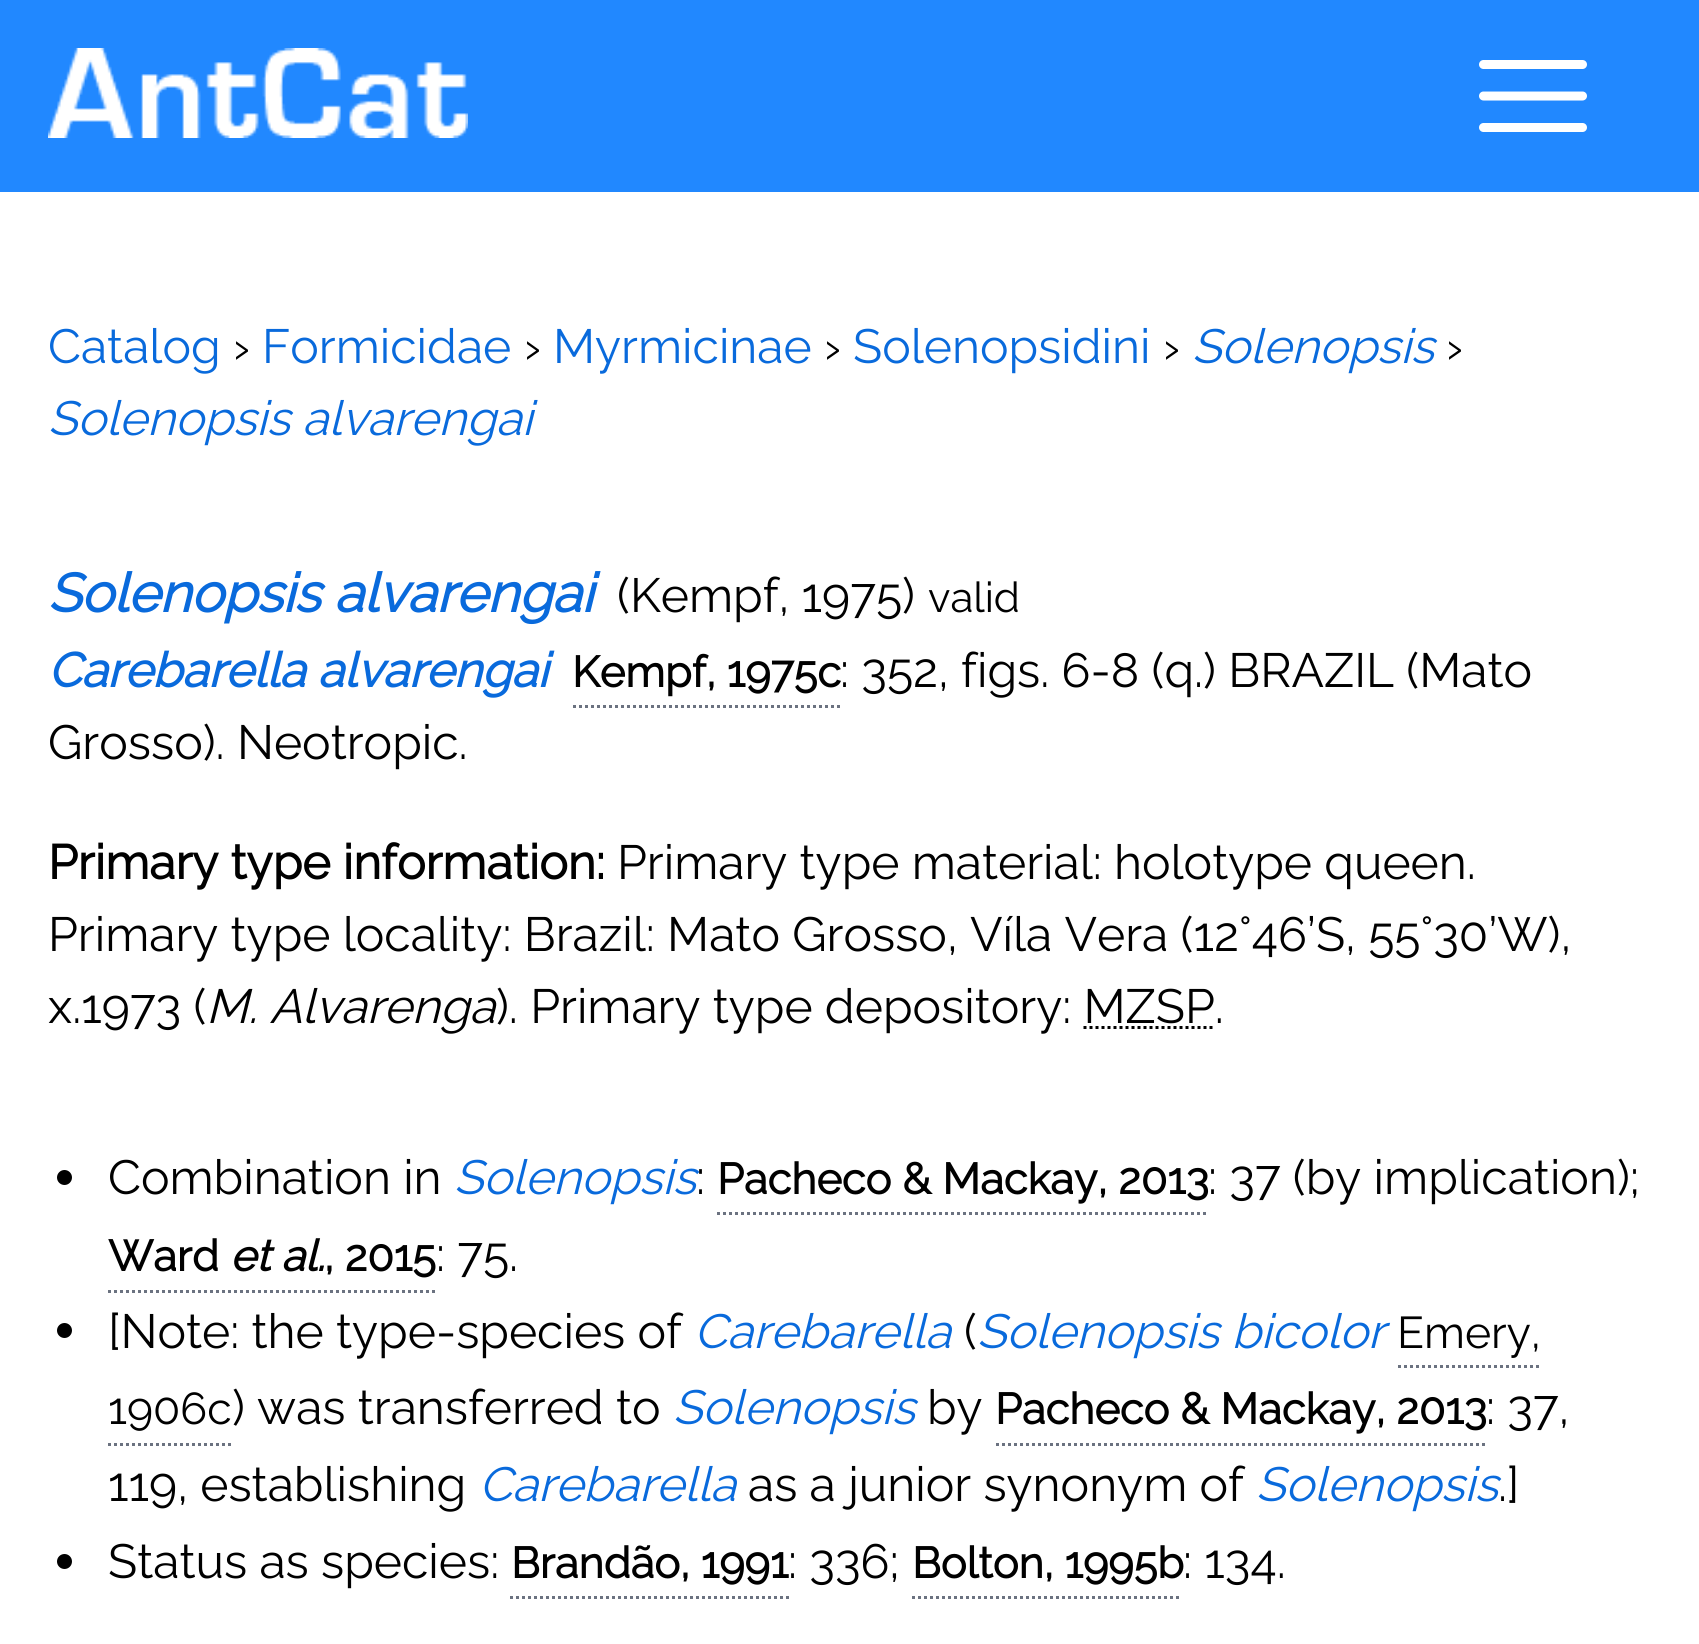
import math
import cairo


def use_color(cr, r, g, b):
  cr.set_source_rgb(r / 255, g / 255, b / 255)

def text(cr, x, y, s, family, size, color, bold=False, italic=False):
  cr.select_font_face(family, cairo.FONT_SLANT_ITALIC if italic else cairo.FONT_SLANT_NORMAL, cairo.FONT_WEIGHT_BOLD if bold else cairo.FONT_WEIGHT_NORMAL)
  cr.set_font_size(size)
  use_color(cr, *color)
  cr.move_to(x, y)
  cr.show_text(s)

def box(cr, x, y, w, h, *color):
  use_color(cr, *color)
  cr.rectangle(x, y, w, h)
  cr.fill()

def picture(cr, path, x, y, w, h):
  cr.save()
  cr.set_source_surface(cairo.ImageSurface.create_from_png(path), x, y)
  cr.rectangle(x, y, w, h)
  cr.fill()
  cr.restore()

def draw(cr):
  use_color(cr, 255, 255, 255)
  cr.paint()
  box(cr, 0, 0, 1699, 192, 33, 136, 255)
  picture(cr, "img_01.png", 48, 48, 420, 90)
  cr.new_path()
  cr.move_to(1483.5, 64.5)
  cr.line_to(1582.5, 64.5)
  cr.move_to(1483.5, 96)
  cr.line_to(1582.5, 96)
  cr.move_to(1483.5, 127.5)
  cr.line_to(1582.5, 127.5)
  use_color(cr, 255, 255, 255)
  cr.set_line_width(9)
  cr.set_line_cap(cairo.LINE_CAP_ROUND)
  cr.set_line_join(cairo.LINE_JOIN_ROUND)
  cr.stroke()
  cr.new_path()
  cr.move_to(573, 706.5)
  cr.line_to(840, 706.5)
  use_color(cr, 107, 114, 128)
  cr.set_line_width(3)
  cr.set_line_cap(cairo.LINE_CAP_BUTT)
  cr.set_line_join(cairo.LINE_JOIN_MITER)
  cr.set_dash([3, 3])
  cr.stroke()
  cr.new_path()
  cr.move_to(1083.5, 1027.5)
  cr.line_to(1214.5, 1027.5)
  use_color(cr, 0, 0, 0)
  cr.stroke()
  cr.new_path()
  cr.move_to(717, 1213.5)
  cr.line_to(1209, 1213.5)
  use_color(cr, 107, 114, 128)
  cr.stroke()
  use_color(cr, 0, 0, 0)
  cr.arc(64.5, 1177.5, 7.5, 0, 2 * math.pi)
  cr.fill()
  cr.new_path()
  cr.move_to(108, 1291.5)
  cr.line_to(435, 1291.5)
  use_color(cr, 107, 114, 128)
  cr.stroke()
  use_color(cr, 0, 0, 0)
  cr.arc(64.5, 1330.5, 7.5, 0, 2 * math.pi)
  cr.fill()
  cr.new_path()
  cr.move_to(1398, 1366.5)
  cr.line_to(1542, 1366.5)
  use_color(cr, 107, 114, 128)
  cr.stroke()
  cr.new_path()
  cr.move_to(108, 1444.5)
  cr.line_to(231, 1444.5)
  cr.stroke()
  cr.new_path()
  cr.move_to(996, 1444.5)
  cr.line_to(1485, 1444.5)
  cr.stroke()
  use_color(cr, 0, 0, 0)
  cr.arc(64.5, 1561.5, 7.5, 0, 2 * math.pi)
  cr.fill()
  cr.new_path()
  cr.move_to(510, 1597.5)
  cr.line_to(789, 1597.5)
  use_color(cr, 107, 114, 128)
  cr.stroke()
  cr.new_path()
  cr.move_to(912, 1597.5)
  cr.line_to(1182, 1597.5)
  cr.stroke()
  text(cr, 48, 363, "Catalog", "Raleway Thin", 48, (9, 106, 220))
  text(cr, 233, 363, "›", "Raleway Thin", 48, (0, 0, 0))
  text(cr, 262, 363, "Formicidae", "Raleway Thin", 48, (9, 106, 220))
  text(cr, 524, 363, "›", "Raleway Thin", 48, (0, 0, 0))
  text(cr, 553, 363, "Myrmicinae", "Raleway Thin", 48, (9, 106, 220))
  text(cr, 824, 363, "›", "Raleway Thin", 48, (0, 0, 0))
  text(cr, 853, 363, "Solenopsidini", "Raleway Thin", 48, (9, 106, 220))
  text(cr, 1163, 363, "›", "Raleway Thin", 48, (0, 0, 0))
  text(cr, 1192, 363, "Solenopsis", "Raleway Thin", 48, (9, 106, 220), italic=True)
  text(cr, 1446, 363, "›", "Raleway Thin", 48, (0, 0, 0))
  text(cr, 48, 435, "Solenopsis alvarengai", "Raleway Thin", 48, (9, 106, 220), italic=True)
  text(cr, 48, 612, "Solenopsis alvarengai", "Raleway", 54, (9, 106, 220), bold=True, italic=True)
  text(cr, 617, 612, "(Kempf, 1975)", "Raleway Thin", 48, (0, 0, 0))
  text(cr, 928, 612, "valid", "Raleway Thin", 42, (0, 0, 0))
  text(cr, 48, 687, "Carebarella alvarengai", "Raleway", 48, (9, 106, 220), bold=True, italic=True)
  text(cr, 572, 687, "Kempf, 1975c", "Raleway", 43.25, (0, 0, 0), bold=True)
  text(cr, 840, 687, ": 352, figs. 6-8 (q.) BRAZIL (Mato", "Raleway Thin", 48, (0, 0, 0))
  text(cr, 48, 759, "Grosso). Neotropic.", "Raleway Thin", 48, (0, 0, 0))
  text(cr, 48, 879, "Primary type information:", "Raleway", 48, (0, 0, 0), bold=True)
  text(cr, 617, 879, "Primary type material: holotype queen.", "Raleway Thin", 48, (0, 0, 0))
  text(cr, 48, 951, "Primary type locality: Brazil: Mato Grosso, Víla Vera (12°46’S, 55°30’W),", "Raleway Thin", 48, (0, 0, 0))
  text(cr, 48, 1023, "x.1973 (", "Raleway Thin", 48, (0, 0, 0))
  text(cr, 206, 1023, "M. Alvarenga", "Raleway Thin", 48, (0, 0, 0), italic=True)
  text(cr, 496, 1023, "). Primary type depository: MZSP.", "Raleway Thin", 48, (0, 0, 0))
  text(cr, 108, 1194, "Combination in", "Raleway Thin", 48, (0, 0, 0))
  text(cr, 454, 1194, "Solenopsis", "Raleway Thin", 48, (9, 106, 220), italic=True)
  text(cr, 717, 1194, "Pacheco & Mackay, 2013", "Raleway", 43.25, (0, 0, 0), bold=True)
  text(cr, 1208, 1194, ": 37 (by implication);", "Raleway Thin", 48, (0, 0, 0))
  text(cr, 696, 1194, ":", "Raleway Thin", 48, (0, 0, 0))
  text(cr, 108, 1271, "Ward", "Raleway", 43.25, (0, 0, 0), bold=True)
  text(cr, 230, 1271, "et al.", "Raleway", 43.25, (0, 0, 0), bold=True, italic=True)
  text(cr, 324, 1271, ", 2015", "Raleway", 43.25, (0, 0, 0), bold=True)
  text(cr, 436, 1271, ": 75.", "Raleway Thin", 48, (0, 0, 0))
  text(cr, 108, 1348, "[Note: the type-species of", "Raleway Thin", 48, (0, 0, 0))
  text(cr, 694, 1348, "Carebarella", "Raleway Thin", 48, (9, 106, 220), italic=True)
  text(cr, 964, 1348, "(", "Raleway Thin", 48, (0, 0, 0))
  text(cr, 977, 1348, "Solenopsis bicolor", "Raleway Thin", 48, (9, 106, 220), italic=True)
  text(cr, 1397, 1348, "Emery,", "Raleway Thin", 44.5, (0, 0, 0))
  text(cr, 108, 1424, "1906c", "Raleway Thin", 44.5, (0, 0, 0))
  text(cr, 232, 1424, ") was transferred to", "Raleway Thin", 48, (0, 0, 0))
  text(cr, 673, 1424, "Solenopsis", "Raleway Thin", 48, (9, 106, 220), italic=True)
  text(cr, 927, 1424, "by", "Raleway Thin", 48, (0, 0, 0))
  text(cr, 995, 1424, "Pacheco & Mackay, 2013", "Raleway", 43.25, (0, 0, 0), bold=True)
  text(cr, 1486, 1424, ": 37,", "Raleway Thin", 48, (0, 0, 0))
  text(cr, 108, 1501, "119, establishing", "Raleway Thin", 48, (0, 0, 0))
  text(cr, 479, 1501, "Carebarella", "Raleway Thin", 48, (9, 106, 220), italic=True)
  text(cr, 748, 1501, "as a junior synonym of", "Raleway Thin", 48, (0, 0, 0))
  text(cr, 1256, 1501, "Solenopsis", "Raleway Thin", 48, (9, 106, 220), italic=True)
  text(cr, 1498, 1501, ".]", "Raleway Thin", 48, (0, 0, 0))
  text(cr, 108, 1578, "Status as species:", "Raleway Thin", 48, (0, 0, 0))
  text(cr, 511, 1578, "Brandão, 1991", "Raleway", 43.25, (0, 0, 0), bold=True)
  text(cr, 788, 1578, ": 336;", "Raleway Thin", 48, (0, 0, 0))
  text(cr, 912, 1578, "Bolton, 1995b", "Raleway", 43.25, (0, 0, 0), bold=True)
  text(cr, 1183, 1578, ": 134.", "Raleway Thin", 48, (0, 0, 0))


surface = cairo.ImageSurface(cairo.FORMAT_RGB24, 1699, 1644)
cr = cairo.Context(surface)
options = cairo.FontOptions()
options.set_hint_metrics(cairo.HINT_METRICS_OFF)
options.set_hint_style(cairo.HINT_STYLE_NONE)
cr.set_font_options(options)
cr.set_miter_limit(4)
draw(cr)
surface.write_to_png("out.png")
